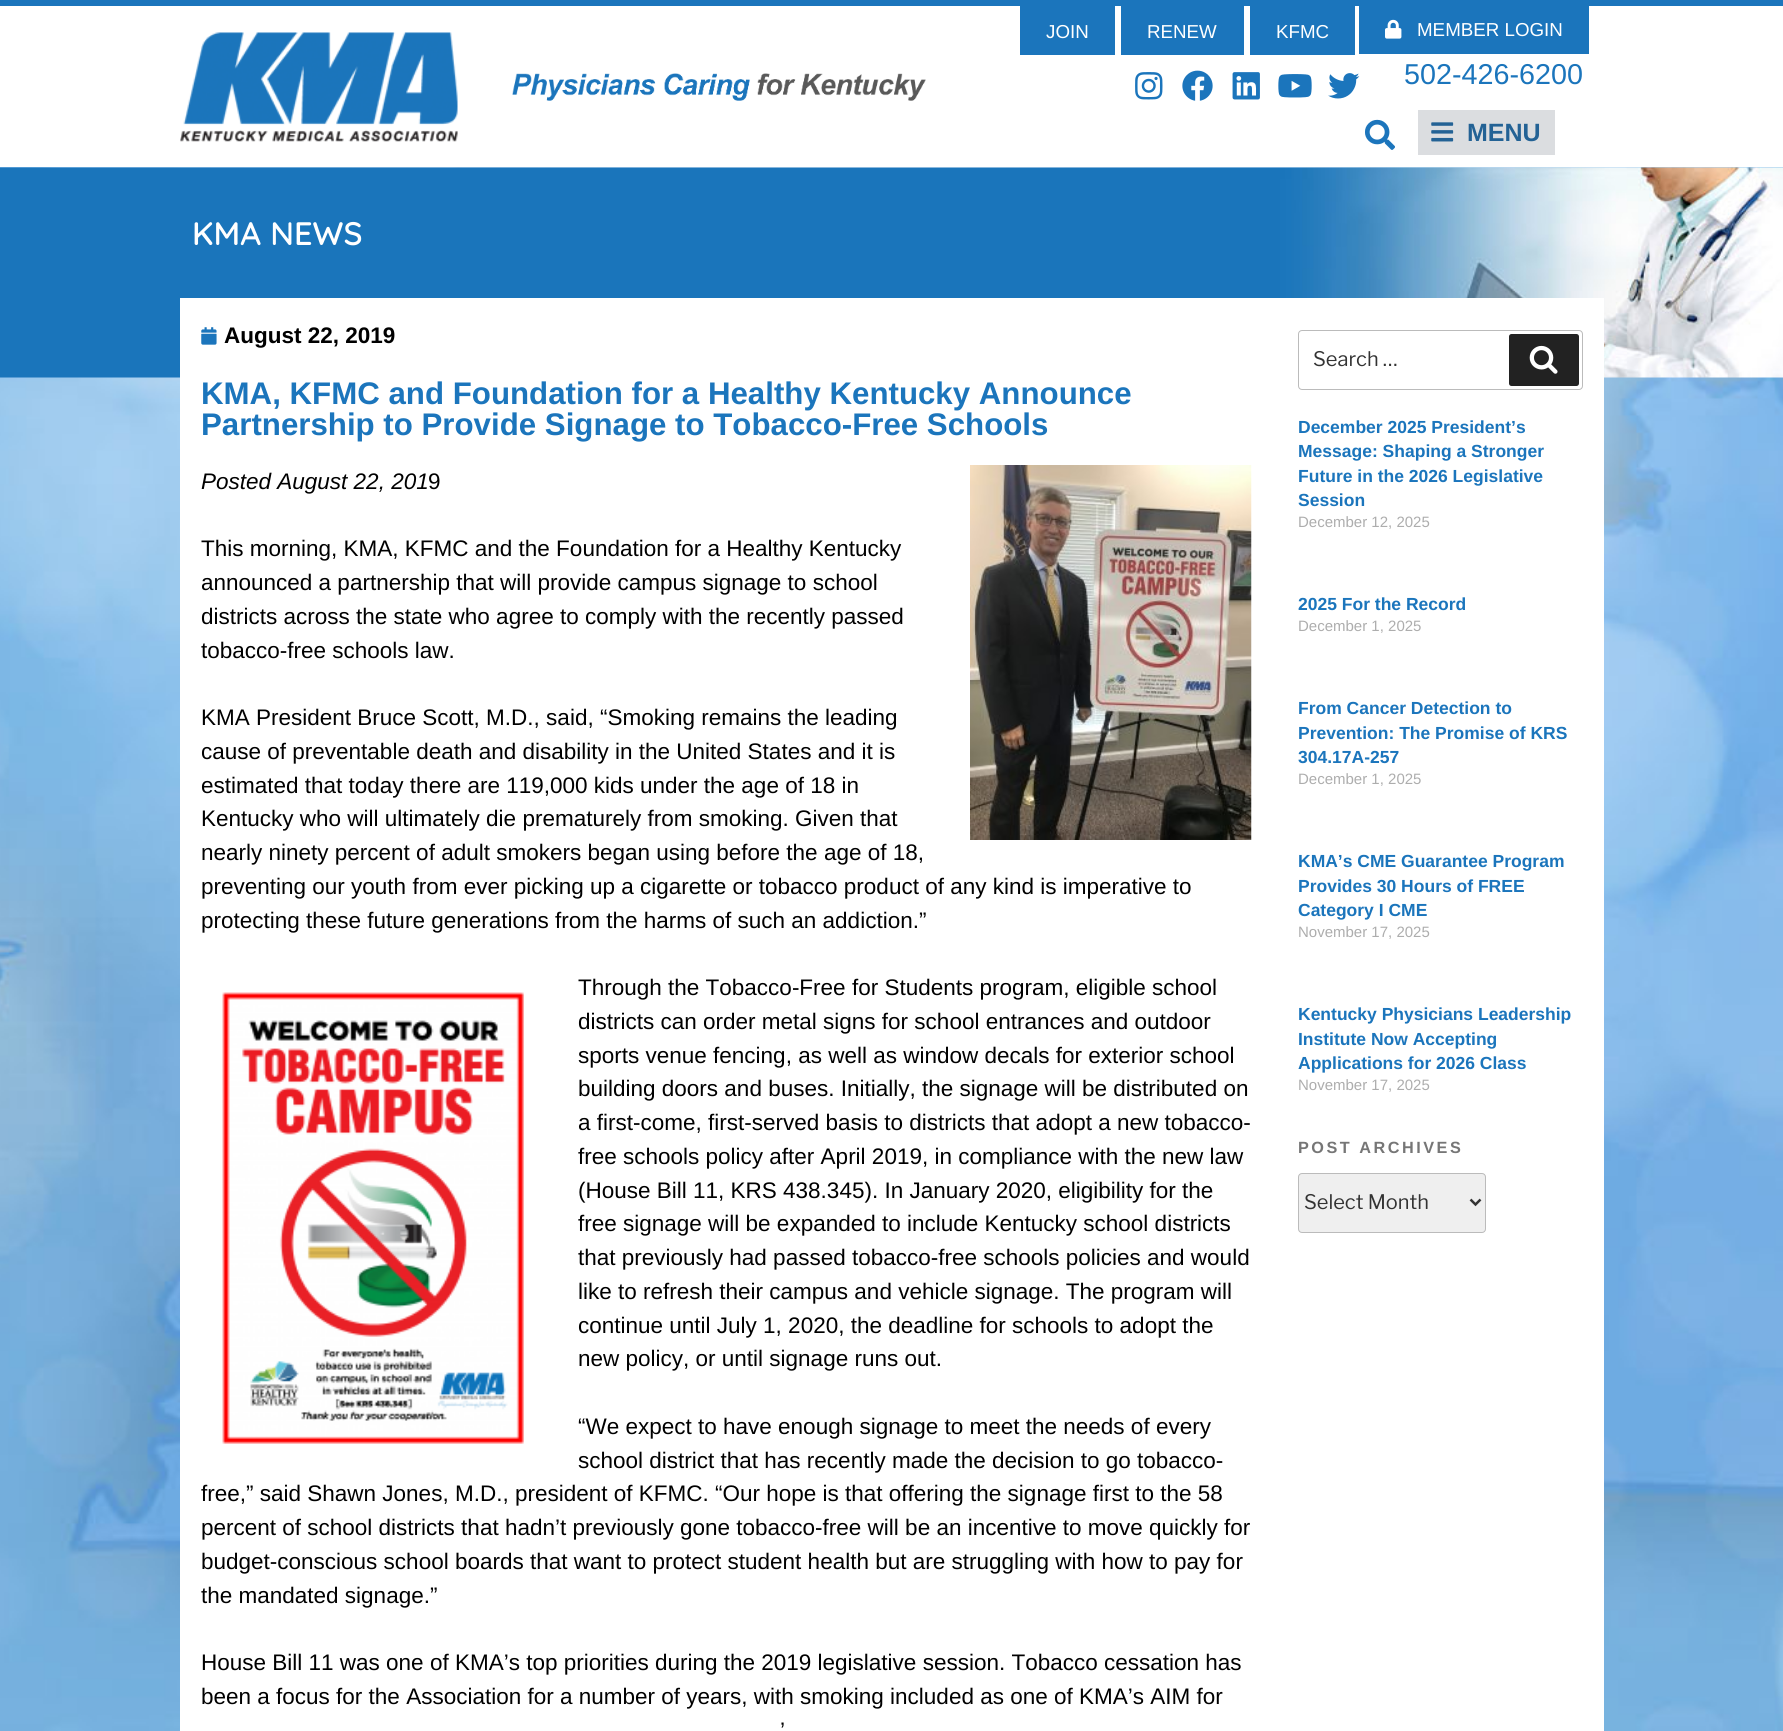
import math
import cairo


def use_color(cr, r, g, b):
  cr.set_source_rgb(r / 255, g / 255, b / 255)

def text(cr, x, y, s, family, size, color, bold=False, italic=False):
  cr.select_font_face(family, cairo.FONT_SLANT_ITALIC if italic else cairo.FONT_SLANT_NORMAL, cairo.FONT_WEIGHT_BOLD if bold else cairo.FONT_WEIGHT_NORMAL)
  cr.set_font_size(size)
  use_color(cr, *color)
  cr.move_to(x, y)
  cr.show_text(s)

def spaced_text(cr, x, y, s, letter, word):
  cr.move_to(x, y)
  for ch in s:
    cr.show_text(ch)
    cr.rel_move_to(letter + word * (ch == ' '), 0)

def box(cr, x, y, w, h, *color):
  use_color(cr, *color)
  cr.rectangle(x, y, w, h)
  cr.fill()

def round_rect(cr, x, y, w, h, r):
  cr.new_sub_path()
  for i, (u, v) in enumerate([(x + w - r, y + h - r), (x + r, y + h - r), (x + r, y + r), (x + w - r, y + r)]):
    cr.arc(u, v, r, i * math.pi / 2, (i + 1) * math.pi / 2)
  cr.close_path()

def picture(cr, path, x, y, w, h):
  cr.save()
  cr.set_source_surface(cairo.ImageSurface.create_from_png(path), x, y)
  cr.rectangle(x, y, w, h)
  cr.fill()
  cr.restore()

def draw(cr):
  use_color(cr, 255, 255, 255)
  cr.paint()
  box(cr, 0, 0, 1783, 6, 27, 117, 188)
  picture(cr, "img_01.png", 180, 32, 278, 110)
  picture(cr, "img_02.png", 512, 73, 414, 28)
  box(cr, 1020, 6, 95, 49, 27, 117, 188)
  box(cr, 1121, 6, 123, 49, 27, 117, 188)
  box(cr, 1250, 6, 105, 49, 27, 117, 188)
  picture(cr, "img_03.png", 1135, 72, 28, 28)
  picture(cr, "img_04.png", 1182, 70, 31, 31)
  picture(cr, "img_05.png", 1232, 72, 28, 28)
  picture(cr, "img_06.png", 1278, 74, 34, 24)
  picture(cr, "img_07.png", 1328, 73, 32, 26)
  box(cr, 1359, 6, 230, 48, 27, 117, 188)
  picture(cr, "img_08.png", 1385, 19, 17, 20)
  picture(cr, "img_09.png", 1365, 119, 30, 31)
  box(cr, 1418, 110, 137, 45, 219, 221, 224)
  picture(cr, "img_10.png", 1431, 122, 23, 20)
  picture(cr, "img_11.png", 0, 167, 1783, 1564)
  picture(cr, "img_12.png", 0, 167, 1783, 211)
  box(cr, 180, 298, 1424, 1433, 255, 255, 255)
  picture(cr, "img_13.png", 201, 327, 16, 18)
  picture(cr, "img_14.png", 970, 465, 282, 375)
  picture(cr, "img_15.png", 222, 992, 302, 452)
  round_rect(cr, 1298.5, 330.5, 284, 59, 3.5)
  use_color(cr, 187, 187, 187)
  cr.set_line_width(1)
  cr.stroke()
  use_color(cr, 34, 34, 34)
  round_rect(cr, 1509, 334, 70, 52, 2.5)
  cr.fill()
  picture(cr, "img_16.png", 1529, 345, 29, 29)
  use_color(cr, 239, 239, 239)
  round_rect(cr, 1298.5, 1173.5, 187, 59, 3.5)
  cr.fill_preserve()
  use_color(cr, 187, 187, 187)
  cr.stroke()
  cr.new_path()
  cr.move_to(1470.5, 1199.5)
  cr.line_to(1475.5, 1204.5)
  cr.line_to(1480.5, 1199.5)
  use_color(cr, 51, 51, 51)
  cr.set_line_width(2.5)
  cr.stroke()
  text(cr, 1046, 38, "JOIN", "Liberation Sans", 18.75, (255, 255, 255))
  text(cr, 1147, 38, "RENEW", "Liberation Sans", 18.75, (255, 255, 255))
  text(cr, 1276, 38, "KFMC", "Liberation Sans", 18.75, (255, 255, 255))
  text(cr, 1417, 36, "MEMBER LOGIN", "Liberation Sans", 18.75, (255, 255, 255))
  text(cr, 1404, 84, "502-426-6200", "Liberation Sans", 28.75, (27, 117, 188))
  text(cr, 1467, 141, "MENU", "Liberation Sans", 25, (35, 98, 149), bold=True)
  text(cr, 192, 245, "KMA NEWS", "Quicksand SemiBold", 32.5, (255, 255, 255))
  text(cr, 224, 343, "August 22, 2019", "Liberation Sans", 22.5, (0, 0, 0), bold=True)
  text(cr, 201, 404, "KMA, KFMC and Foundation for a Healthy Kentucky Announce", "Liberation Sans", 31.25, (27, 117, 188), bold=True)
  text(cr, 201, 435, "Partnership to Provide Signage to Tobacco-Free Schools", "Liberation Sans", 31.25, (27, 117, 188), bold=True)
  text(cr, 201, 489, "Posted August 22, 201", "Liberation Sans", 22.5, (0, 0, 0), italic=True)
  text(cr, 428, 489, "9", "Liberation Sans", 22.5, (0, 0, 0))
  text(cr, 201, 556, "This morning, KMA, KFMC and the Foundation for a Healthy Kentucky", "Liberation Sans", 22.5, (0, 0, 0))
  text(cr, 201, 590, "announced a partnership that will provide campus signage to school", "Liberation Sans", 22.5, (0, 0, 0))
  text(cr, 201, 624, "districts across the state who agree to comply with the recently passed", "Liberation Sans", 22.5, (0, 0, 0))
  text(cr, 201, 658, "tobacco-free schools law.", "Liberation Sans", 22.5, (0, 0, 0))
  text(cr, 201, 725, "KMA President Bruce Scott, M.D., said, “Smoking remains the leading", "Liberation Sans", 22.5, (0, 0, 0))
  text(cr, 201, 759, "cause of preventable death and disability in the United States and it is", "Liberation Sans", 22.5, (0, 0, 0))
  text(cr, 201, 793, "estimated that today there are 119,000 kids under the age of 18 in", "Liberation Sans", 22.5, (0, 0, 0))
  text(cr, 201, 826, "Kentucky who will ultimately die prematurely from smoking. Given that", "Liberation Sans", 22.5, (0, 0, 0))
  text(cr, 201, 860, "nearly ninety percent of adult smokers began using before the age of 18,", "Liberation Sans", 22.5, (0, 0, 0))
  text(cr, 201, 894, "preventing our youth from ever picking up a cigarette or tobacco product of any kind is imperative to", "Liberation Sans", 22.5, (0, 0, 0))
  text(cr, 201, 928, "protecting these future generations from the harms of such an addiction.”", "Liberation Sans", 22.5, (0, 0, 0))
  text(cr, 578, 995, "Through the Tobacco-Free for Students program, eligible school", "Liberation Sans", 22.5, (0, 0, 0))
  text(cr, 578, 1029, "districts can order metal signs for school entrances and outdoor", "Liberation Sans", 22.5, (0, 0, 0))
  text(cr, 578, 1063, "sports venue fencing, as well as window decals for exterior school", "Liberation Sans", 22.5, (0, 0, 0))
  text(cr, 578, 1096, "building doors and buses. Initially, the signage will be distributed on", "Liberation Sans", 22.5, (0, 0, 0))
  text(cr, 578, 1130, "a first-come, first-served basis to districts that adopt a new tobacco-", "Liberation Sans", 22.5, (0, 0, 0))
  text(cr, 578, 1164, "free schools policy after April 2019, in compliance with the new law", "Liberation Sans", 22.5, (0, 0, 0))
  text(cr, 578, 1198, "(House Bill 11, KRS 438.345). In January 2020, eligibility for the", "Liberation Sans", 22.5, (0, 0, 0))
  text(cr, 578, 1231, "free signage will be expanded to include Kentucky school districts", "Liberation Sans", 22.5, (0, 0, 0))
  text(cr, 578, 1265, "that previously had passed tobacco-free schools policies and would", "Liberation Sans", 22.5, (0, 0, 0))
  text(cr, 578, 1299, "like to refresh their campus and vehicle signage. The program will", "Liberation Sans", 22.5, (0, 0, 0))
  text(cr, 578, 1333, "continue until July 1, 2020, the deadline for schools to adopt the", "Liberation Sans", 22.5, (0, 0, 0))
  text(cr, 578, 1366, "new policy, or until signage runs out.", "Liberation Sans", 22.5, (0, 0, 0))
  text(cr, 578, 1434, "“We expect to have enough signage to meet the needs of every", "Liberation Sans", 22.5, (0, 0, 0))
  text(cr, 578, 1468, "school district that has recently made the decision to go tobacco-", "Liberation Sans", 22.5, (0, 0, 0))
  text(cr, 201, 1501, "free,” said Shawn Jones, M.D., president of KFMC. “Our hope is that offering the signage first to the 58", "Liberation Sans", 22.5, (0, 0, 0))
  text(cr, 201, 1535, "percent of school districts that hadn’t previously gone tobacco-free will be an incentive to move quickly for", "Liberation Sans", 22.5, (0, 0, 0))
  text(cr, 201, 1569, "budget-conscious school boards that want to protect student health but are struggling with how to pay for", "Liberation Sans", 22.5, (0, 0, 0))
  text(cr, 201, 1603, "the mandated signage.”", "Liberation Sans", 22.5, (0, 0, 0))
  text(cr, 201, 1670, "House Bill 11 was one of KMA’s top priorities during the 2019 legislative session. Tobacco cessation has", "Liberation Sans", 22.5, (0, 0, 0))
  text(cr, 201, 1704, "been a focus for the Association for a number of years, with smoking included as one of KMA’s AIM for", "Liberation Sans", 22.5, (0, 0, 0))
  text(cr, 780, 1738, "’", "Liberation Sans", 22.5, (0, 0, 0))
  text(cr, 1313, 366, "Search …", "Libre Franklin", 20, (51, 51, 51))
  text(cr, 1298, 433, "December 2025 President’s", "Liberation Sans", 17.5, (27, 117, 188), bold=True)
  text(cr, 1298, 457, "Message: Shaping a Stronger", "Liberation Sans", 17.5, (27, 117, 188), bold=True)
  text(cr, 1298, 482, "Future in the 2026 Legislative", "Liberation Sans", 17.5, (27, 117, 188), bold=True)
  text(cr, 1298, 506, "Session", "Liberation Sans", 17.5, (27, 117, 188), bold=True)
  text(cr, 1298, 527, "December 12, 2025", "Liberation Sans", 15, (173, 173, 173))
  text(cr, 1298, 610, "2025 For the Record", "Liberation Sans", 17.5, (27, 117, 188), bold=True)
  text(cr, 1298, 631, "December 1, 2025", "Liberation Sans", 15, (173, 173, 173))
  text(cr, 1298, 714, "From Cancer Detection to", "Liberation Sans", 17.5, (27, 117, 188), bold=True)
  text(cr, 1298, 739, "Prevention: The Promise of KRS", "Liberation Sans", 17.5, (27, 117, 188), bold=True)
  text(cr, 1298, 763, "304.17A-257", "Liberation Sans", 17.5, (27, 117, 188), bold=True)
  text(cr, 1298, 784, "December 1, 2025", "Liberation Sans", 15, (173, 173, 173))
  text(cr, 1298, 867, "KMA’s CME Guarantee Program", "Liberation Sans", 17.5, (27, 117, 188), bold=True)
  text(cr, 1298, 892, "Provides 30 Hours of FREE", "Liberation Sans", 17.5, (27, 117, 188), bold=True)
  text(cr, 1298, 916, "Category I CME", "Liberation Sans", 17.5, (27, 117, 188), bold=True)
  text(cr, 1298, 937, "November 17, 2025", "Liberation Sans", 15, (173, 173, 173))
  text(cr, 1298, 1020, "Kentucky Physicians Leadership", "Liberation Sans", 17.5, (27, 117, 188), bold=True)
  text(cr, 1298, 1045, "Institute Now Accepting", "Liberation Sans", 17.5, (27, 117, 188), bold=True)
  text(cr, 1298, 1069, "Applications for 2026 Class", "Liberation Sans", 17.5, (27, 117, 188), bold=True)
  text(cr, 1298, 1090, "November 17, 2025", "Liberation Sans", 15, (173, 173, 173))
  cr.select_font_face("Liberation Sans", cairo.FONT_SLANT_NORMAL, cairo.FONT_WEIGHT_BOLD)
  cr.set_font_size(16.25)
  use_color(cr, 118, 118, 118)
  spaced_text(cr, 1298, 1153, "POST ARCHIVES", 2.5, 0)
  text(cr, 1304, 1209, "Select Month", "Libre Franklin", 20, (51, 51, 51))


surface = cairo.ImageSurface(cairo.FORMAT_RGB24, 1783, 1731)
cr = cairo.Context(surface)
options = cairo.FontOptions()
options.set_hint_metrics(cairo.HINT_METRICS_OFF)
options.set_hint_style(cairo.HINT_STYLE_NONE)
cr.set_font_options(options)
cr.set_miter_limit(4)
draw(cr)
surface.write_to_png("out.png")
